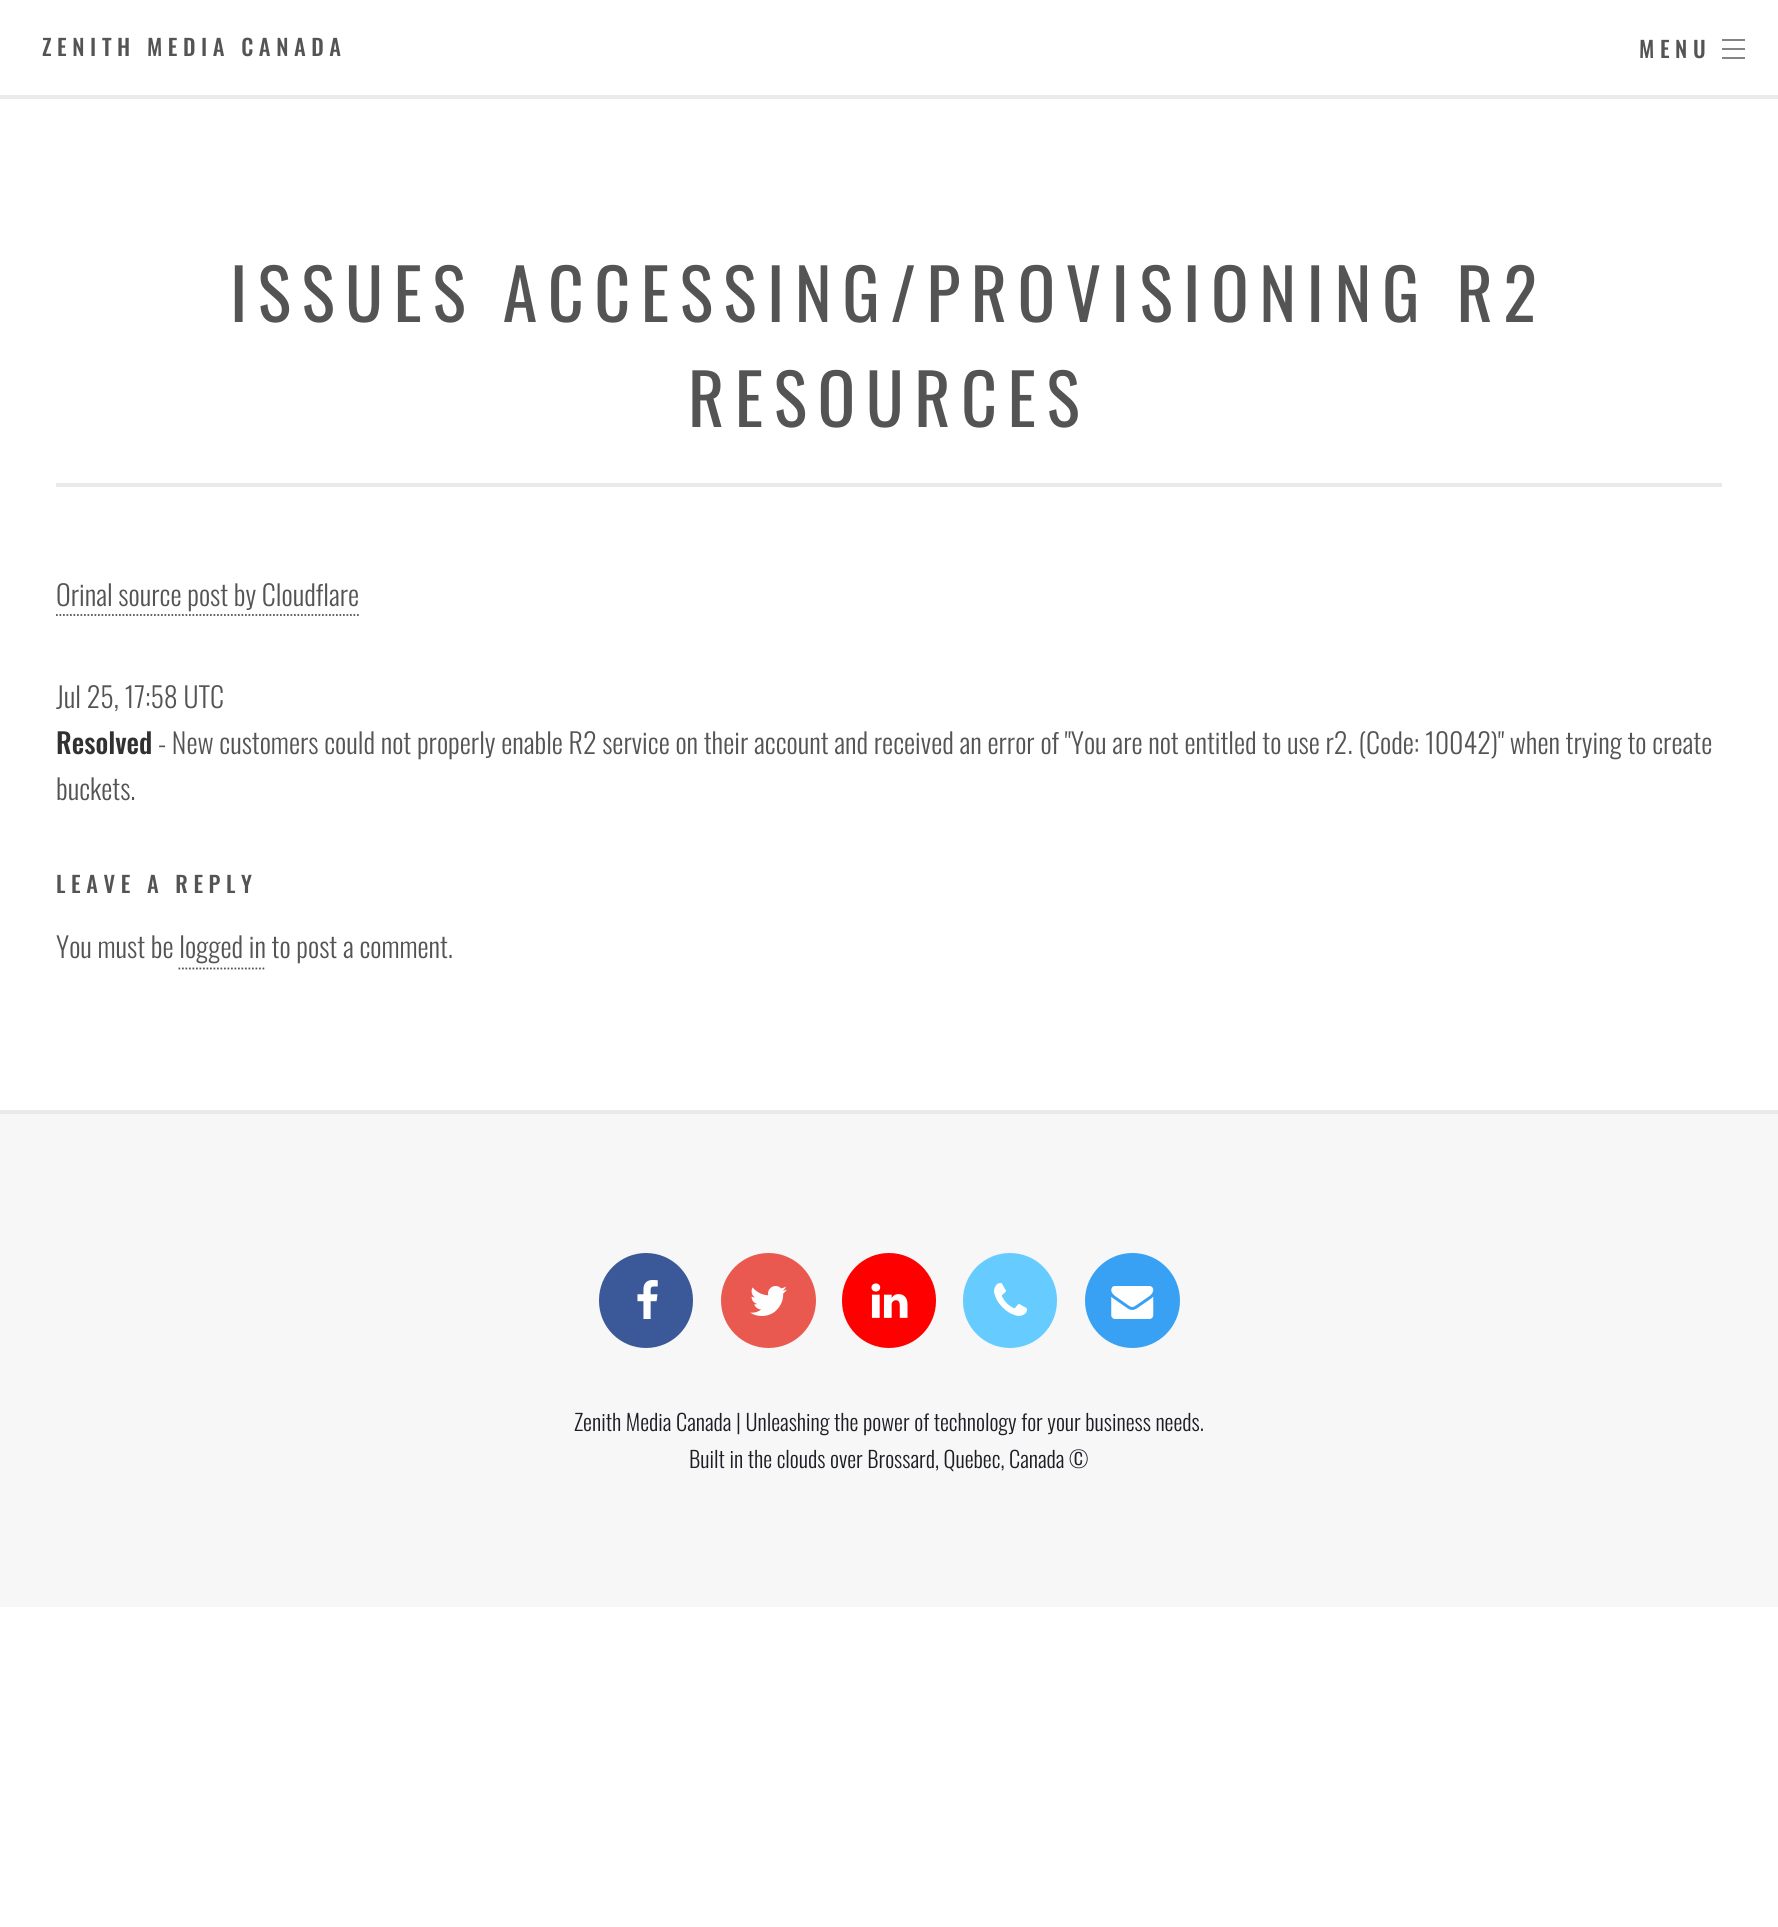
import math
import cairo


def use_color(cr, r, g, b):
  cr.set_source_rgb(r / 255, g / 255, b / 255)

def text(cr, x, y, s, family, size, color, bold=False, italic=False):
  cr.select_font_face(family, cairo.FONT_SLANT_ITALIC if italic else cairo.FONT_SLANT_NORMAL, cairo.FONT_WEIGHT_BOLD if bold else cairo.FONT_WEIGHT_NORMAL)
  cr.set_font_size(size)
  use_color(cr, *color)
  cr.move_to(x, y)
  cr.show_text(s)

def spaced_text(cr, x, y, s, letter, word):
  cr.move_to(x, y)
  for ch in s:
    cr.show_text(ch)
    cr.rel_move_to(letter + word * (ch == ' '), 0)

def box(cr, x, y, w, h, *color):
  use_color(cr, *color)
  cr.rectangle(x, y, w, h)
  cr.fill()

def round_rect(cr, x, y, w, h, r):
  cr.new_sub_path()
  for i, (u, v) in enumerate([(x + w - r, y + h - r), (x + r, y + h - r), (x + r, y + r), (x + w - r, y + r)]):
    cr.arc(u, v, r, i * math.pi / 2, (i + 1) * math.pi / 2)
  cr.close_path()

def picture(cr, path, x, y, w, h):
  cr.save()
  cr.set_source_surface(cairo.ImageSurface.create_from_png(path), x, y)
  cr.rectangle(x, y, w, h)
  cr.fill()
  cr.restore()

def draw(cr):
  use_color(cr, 255, 255, 255)
  cr.paint()
  box(cr, 0, 95, 1778, 4, 234, 234, 234)
  picture(cr, "img_01.png", 1722, 39, 23, 20)
  box(cr, 0, 1110, 1778, 4, 234, 234, 234)
  box(cr, 56, 483, 1666, 4, 234, 234, 234)
  cr.new_path()
  cr.move_to(56, 615)
  cr.line_to(359, 615)
  use_color(cr, 84, 84, 84)
  cr.set_line_width(1.8)
  cr.set_dash([1.75, 1.75])
  cr.stroke()
  cr.new_path()
  cr.move_to(178.5, 968.5)
  cr.line_to(266, 968.5)
  cr.stroke()
  box(cr, 0, 1114, 1778, 493, 247, 247, 247)
  use_color(cr, 59, 89, 152)
  round_rect(cr, 599, 1253, 94, 95, 47)
  cr.fill()
  picture(cr, "img_02.png", 637, 1280, 21, 39)
  use_color(cr, 233, 89, 80)
  cr.arc(768.5, 1300.5, 47.5, 0, 2 * math.pi)
  cr.fill()
  picture(cr, "img_03.png", 750, 1286, 37, 30)
  use_color(cr, 255, 0, 0)
  round_rect(cr, 842, 1253, 94, 95, 47)
  cr.fill()
  picture(cr, "img_04.png", 871, 1283, 37, 35)
  use_color(cr, 102, 204, 255)
  round_rect(cr, 963, 1253, 94, 95, 47)
  cr.fill()
  picture(cr, "img_05.png", 994, 1283, 33, 33)
  use_color(cr, 56, 161, 243)
  cr.arc(1132.5, 1300.5, 47.5, 0, 2 * math.pi)
  cr.fill()
  picture(cr, "img_06.png", 1111, 1286, 43, 33)
  cr.select_font_face("Oswald Medium")
  cr.set_font_size(22.4)
  use_color(cr, 83, 84, 83)
  spaced_text(cr, 42, 56, "ZENITH MEDIA CANADA", 5.6, 0)
  spaced_text(cr, 1639, 58, "MENU", 5.6, 0)
  cr.select_font_face("Oswald")
  cr.set_font_size(70)
  spaced_text(cr, 230, 322, "ISSUES ACCESSING/PROVISIONING R2", 10.5, 0)
  spaced_text(cr, 688, 427, "RESOURCES", 10.5, 0)
  text(cr, 56, 606, "Orinal source post by Cloudflare", "Oswald Light", 28, (83, 84, 83))
  text(cr, 56, 708, "Jul 25, 17:58 UTC", "Oswald Light", 28, (83, 84, 83))
  text(cr, 56, 754, "Resolved", "Oswald Medium", 28, (49, 49, 49))
  text(cr, 158, 754, "- New customers could not properly enable R2 service on their account and received an error of \"You are not entitled to use r2. (Code: 10042)\" when trying to create", "Oswald Light", 28, (83, 84, 83))
  text(cr, 56, 800, "buckets.", "Oswald Light", 28, (83, 84, 83))
  cr.select_font_face("Oswald Medium")
  cr.set_font_size(22.4)
  spaced_text(cr, 56, 893, "LEAVE A REPLY", 5.6, 0)
  text(cr, 56, 958, "You must be logged in to post a comment.", "Oswald Light", 28, (83, 84, 83))
  text(cr, 574, 1431, "Zenith Media Canada | Unleashing the power of technology for your business needs.", "Oswald Light", 22.4, (30, 31, 38))
  text(cr, 689, 1468, "Built in the clouds over Brossard, Quebec, Canada ©", "Oswald Light", 22.4, (30, 31, 38))


surface = cairo.ImageSurface(cairo.FORMAT_RGB24, 1778, 1927)
cr = cairo.Context(surface)
options = cairo.FontOptions()
options.set_hint_metrics(cairo.HINT_METRICS_OFF)
options.set_hint_style(cairo.HINT_STYLE_NONE)
cr.set_font_options(options)
cr.set_miter_limit(4)
draw(cr)
surface.write_to_png("out.png")
